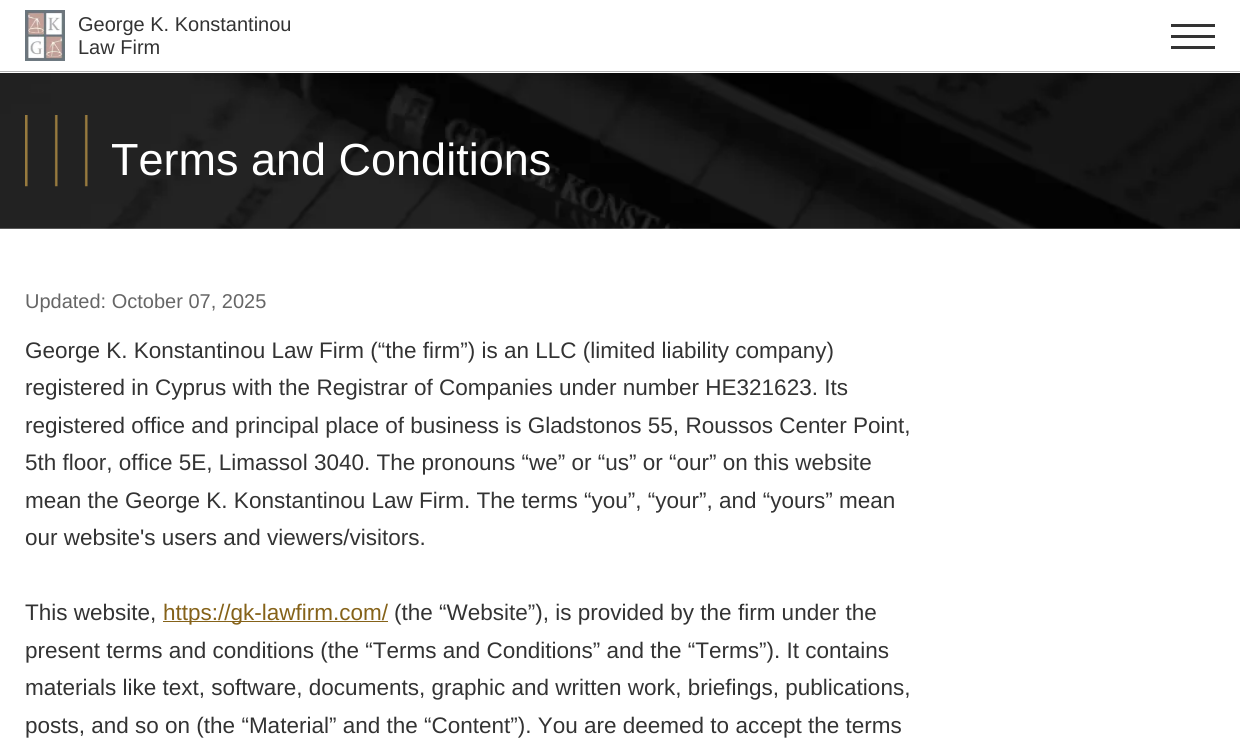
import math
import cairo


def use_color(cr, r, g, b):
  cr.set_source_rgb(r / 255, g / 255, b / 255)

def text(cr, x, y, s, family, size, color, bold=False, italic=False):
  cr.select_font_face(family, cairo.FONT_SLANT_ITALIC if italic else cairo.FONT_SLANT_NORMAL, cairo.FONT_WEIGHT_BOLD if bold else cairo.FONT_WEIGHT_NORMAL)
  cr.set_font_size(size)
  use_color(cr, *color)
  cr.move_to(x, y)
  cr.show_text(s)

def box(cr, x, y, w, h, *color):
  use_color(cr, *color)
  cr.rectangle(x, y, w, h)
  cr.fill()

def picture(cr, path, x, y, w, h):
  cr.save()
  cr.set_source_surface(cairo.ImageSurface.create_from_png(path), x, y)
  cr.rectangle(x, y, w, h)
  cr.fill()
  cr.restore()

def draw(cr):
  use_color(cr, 255, 255, 255)
  cr.paint()
  box(cr, 0, 71, 1240, 1, 179, 179, 179)
  picture(cr, "img_01.png", 25, 10, 40, 51)
  box(cr, 1171, 24, 44, 3, 51, 51, 51)
  box(cr, 1171, 35, 44, 3, 51, 51, 51)
  box(cr, 1171, 46, 44, 3, 51, 51, 51)
  picture(cr, "img_02.png", 0, 73, 1240, 156)
  picture(cr, "img_03.png", 25, 115, 63, 72)
  box(cr, 163, 621, 225, 1, 133, 98, 25)
  text(cr, 78, 31, "George K. Konstantinou", "Liberation Sans", 20, (51, 51, 51))
  text(cr, 78, 54, "Law Firm", "Liberation Sans", 20, (51, 51, 51))
  text(cr, 111, 175, "Terms and Conditions", "Liberation Sans", 45, (255, 255, 255))
  text(cr, 25, 308, "Updated: October 07, 2025", "Liberation Sans", 20, (102, 102, 102))
  text(cr, 25, 358, "George K. Konstantinou Law Firm (“the firm”) is an LLC (limited liability company)", "Liberation Sans", 22.5, (51, 51, 51))
  text(cr, 25, 395, "registered in Cyprus with the Registrar of Companies under number HE321623. Its", "Liberation Sans", 22.5, (51, 51, 51))
  text(cr, 25, 433, "registered office and principal place of business is Gladstonos 55, Roussos Center Point,", "Liberation Sans", 22.5, (51, 51, 51))
  text(cr, 25, 470, "5th floor, office 5E, Limassol 3040. The pronouns “we” or “us” or “our” on this website", "Liberation Sans", 22.5, (51, 51, 51))
  text(cr, 25, 508, "mean the George K. Konstantinou Law Firm. The terms “you”, “your”, and “yours” mean", "Liberation Sans", 22.5, (51, 51, 51))
  text(cr, 25, 545, "our website's users and viewers/visitors.", "Liberation Sans", 22.5, (51, 51, 51))
  text(cr, 25, 620, "This website,", "Liberation Sans", 22.5, (51, 51, 51))
  text(cr, 163, 620, "https://gk-lawfirm.com/", "Liberation Sans", 22.5, (133, 98, 25))
  text(cr, 394, 620, "(the “Website”), is provided by the firm under the", "Liberation Sans", 22.5, (51, 51, 51))
  text(cr, 25, 658, "present terms and conditions (the “Terms and Conditions” and the “Terms”). It contains", "Liberation Sans", 22.5, (51, 51, 51))
  text(cr, 25, 695, "materials like text, software, documents, graphic and written work, briefings, publications,", "Liberation Sans", 22.5, (51, 51, 51))
  text(cr, 25, 733, "posts, and so on (the “Material” and the “Content”). You are deemed to accept the terms", "Liberation Sans", 22.5, (51, 51, 51))


surface = cairo.ImageSurface(cairo.FORMAT_RGB24, 1240, 744)
cr = cairo.Context(surface)
options = cairo.FontOptions()
options.set_hint_metrics(cairo.HINT_METRICS_OFF)
options.set_hint_style(cairo.HINT_STYLE_NONE)
cr.set_font_options(options)
cr.set_miter_limit(4)
draw(cr)
surface.write_to_png("out.png")
